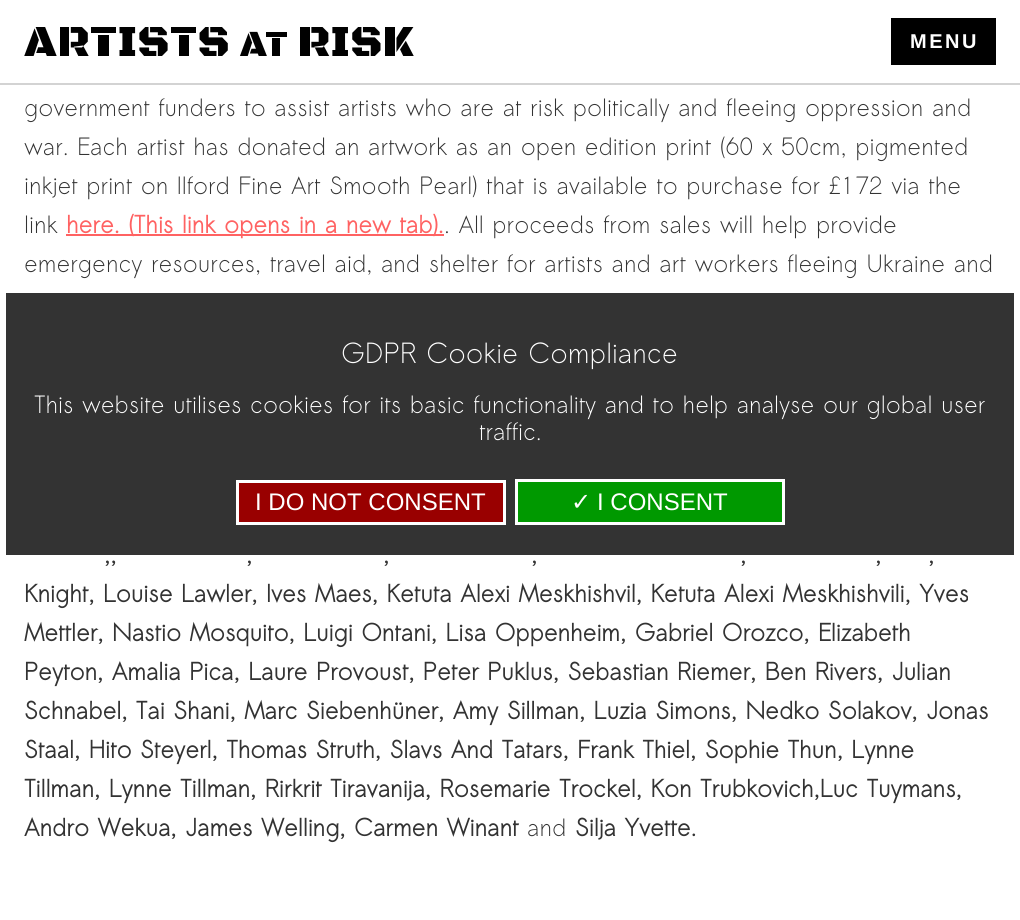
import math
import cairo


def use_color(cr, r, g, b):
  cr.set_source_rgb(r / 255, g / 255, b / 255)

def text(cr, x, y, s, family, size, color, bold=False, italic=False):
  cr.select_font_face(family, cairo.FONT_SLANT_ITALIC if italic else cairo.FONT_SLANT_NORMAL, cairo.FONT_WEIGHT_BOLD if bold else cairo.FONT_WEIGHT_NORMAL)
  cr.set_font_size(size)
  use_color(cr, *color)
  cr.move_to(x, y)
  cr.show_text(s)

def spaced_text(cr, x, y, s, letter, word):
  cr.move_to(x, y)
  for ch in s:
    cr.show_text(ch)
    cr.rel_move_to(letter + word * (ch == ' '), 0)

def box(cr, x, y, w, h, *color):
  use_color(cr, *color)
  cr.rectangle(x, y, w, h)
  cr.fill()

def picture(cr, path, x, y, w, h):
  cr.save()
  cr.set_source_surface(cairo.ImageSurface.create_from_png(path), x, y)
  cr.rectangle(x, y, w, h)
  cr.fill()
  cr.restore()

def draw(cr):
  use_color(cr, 255, 255, 255)
  cr.paint()
  box(cr, 0, 83, 1020, 2, 211, 211, 211)
  picture(cr, "img_01.png", 24, 27, 390, 29)
  box(cr, 891, 18, 105, 47, 0, 0, 0)
  box(cr, 66, 234, 378, 2, 255, 98, 98)
  box(cr, 6, 293, 1008, 262, 51, 51, 51)
  use_color(cr, 153, 0, 0)
  cr.rectangle(237.5, 481.5, 267, 42)
  cr.fill_preserve()
  use_color(cr, 255, 255, 255)
  cr.set_line_width(3)
  cr.stroke()
  use_color(cr, 0, 153, 0)
  cr.rectangle(516.5, 480.5, 267, 43)
  cr.fill_preserve()
  use_color(cr, 255, 255, 255)
  cr.stroke()
  cr.select_font_face("Liberation Sans", cairo.FONT_SLANT_NORMAL, cairo.FONT_WEIGHT_BOLD)
  cr.set_font_size(20)
  spaced_text(cr, 910, 48, "MENU", 2.5, 0)
  text(cr, 24, 116, "government funders to assist artists who are at risk politically and fleeing oppression and", "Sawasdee", 24, (51, 51, 51))
  text(cr, 24, 155, "war. Each artist has donated an artwork as an open edition print (60 x 50cm, pigmented", "Sawasdee", 24, (51, 51, 51))
  text(cr, 24, 194, "inkjet print on Ilford Fine Art Smooth Pearl) that is available to purchase for £172 via the", "Sawasdee", 24, (51, 51, 51))
  text(cr, 24, 233, "link", "Sawasdee", 24, (51, 51, 51))
  text(cr, 66, 233, "here. (This link opens in a new tab).", "Sawasdee", 24, (255, 98, 98), bold=True)
  text(cr, 444, 233, ". All proceeds from sales will help provide", "Sawasdee", 24, (51, 51, 51))
  text(cr, 24, 272, "emergency resources, travel aid, and shelter for artists and art workers fleeing Ukraine and", "Sawasdee", 24, (51, 51, 51))
  text(cr, 104, 563, ",,", "Sawasdee", 24, (51, 51, 51), bold=True)
  text(cr, 246, 563, ",", "Sawasdee", 24, (51, 51, 51), bold=True)
  text(cr, 383, 563, ",", "Sawasdee", 24, (51, 51, 51), bold=True)
  text(cr, 531, 563, ",", "Sawasdee", 24, (51, 51, 51), bold=True)
  text(cr, 740, 563, ",", "Sawasdee", 24, (51, 51, 51), bold=True)
  text(cr, 875, 563, ",", "Sawasdee", 24, (51, 51, 51), bold=True)
  text(cr, 928, 563, ",", "Sawasdee", 24, (51, 51, 51), bold=True)
  text(cr, 24, 602, "Knight, Louise Lawler, Ives Maes, Ketuta Alexi Meskhishvil, Ketuta Alexi Meskhishvili, Yves", "Sawasdee", 24, (51, 51, 51), bold=True)
  text(cr, 24, 641, "Mettler, Nastio Mosquito, Luigi Ontani, Lisa Oppenheim, Gabriel Orozco, Elizabeth", "Sawasdee", 24, (51, 51, 51), bold=True)
  text(cr, 24, 680, "Peyton, Amalia Pica, Laure Provoust, Peter Puklus, Sebastian Riemer, Ben Rivers, Julian", "Sawasdee", 24, (51, 51, 51), bold=True)
  text(cr, 24, 719, "Schnabel, Tai Shani, Marc Siebenhüner, Amy Sillman, Luzia Simons, Nedko Solakov, Jonas", "Sawasdee", 24, (51, 51, 51), bold=True)
  text(cr, 24, 758, "Staal, Hito Steyerl, Thomas Struth, Slavs And Tatars, Frank Thiel, Sophie Thun, Lynne", "Sawasdee", 24, (51, 51, 51), bold=True)
  text(cr, 24, 797, "Tillman, Lynne Tillman, Rirkrit Tiravanija, Rosemarie Trockel, Kon Trubkovich,Luc Tuymans,", "Sawasdee", 24, (51, 51, 51), bold=True)
  text(cr, 24, 836, "Andro Wekua, James Welling, Carmen Winant", "Sawasdee", 24, (51, 51, 51), bold=True)
  text(cr, 527, 836, "and", "Sawasdee", 24, (51, 51, 51))
  text(cr, 575, 836, "Silja Yvette.", "Sawasdee", 24, (51, 51, 51), bold=True)
  text(cr, 341, 363, "GDPR Cookie Compliance", "Sawasdee", 28, (255, 255, 255))
  text(cr, 34, 413, "This website utilises cookies for its basic functionality and to help analyse our global user", "Sawasdee", 24, (255, 255, 255))
  text(cr, 479, 440, "traffic.", "Sawasdee", 24, (255, 255, 255))
  text(cr, 255, 510, "I DO NOT CONSENT", "Liberation Sans", 24, (255, 255, 255))
  text(cr, 571, 510, "✓", "DejaVu Sans", 24, (255, 255, 255))
  text(cr, 597, 510, "I CONSENT", "Liberation Sans", 24, (255, 255, 255))


surface = cairo.ImageSurface(cairo.FORMAT_RGB24, 1020, 920)
cr = cairo.Context(surface)
options = cairo.FontOptions()
options.set_hint_metrics(cairo.HINT_METRICS_OFF)
options.set_hint_style(cairo.HINT_STYLE_NONE)
cr.set_font_options(options)
cr.set_miter_limit(4)
draw(cr)
surface.write_to_png("out.png")
